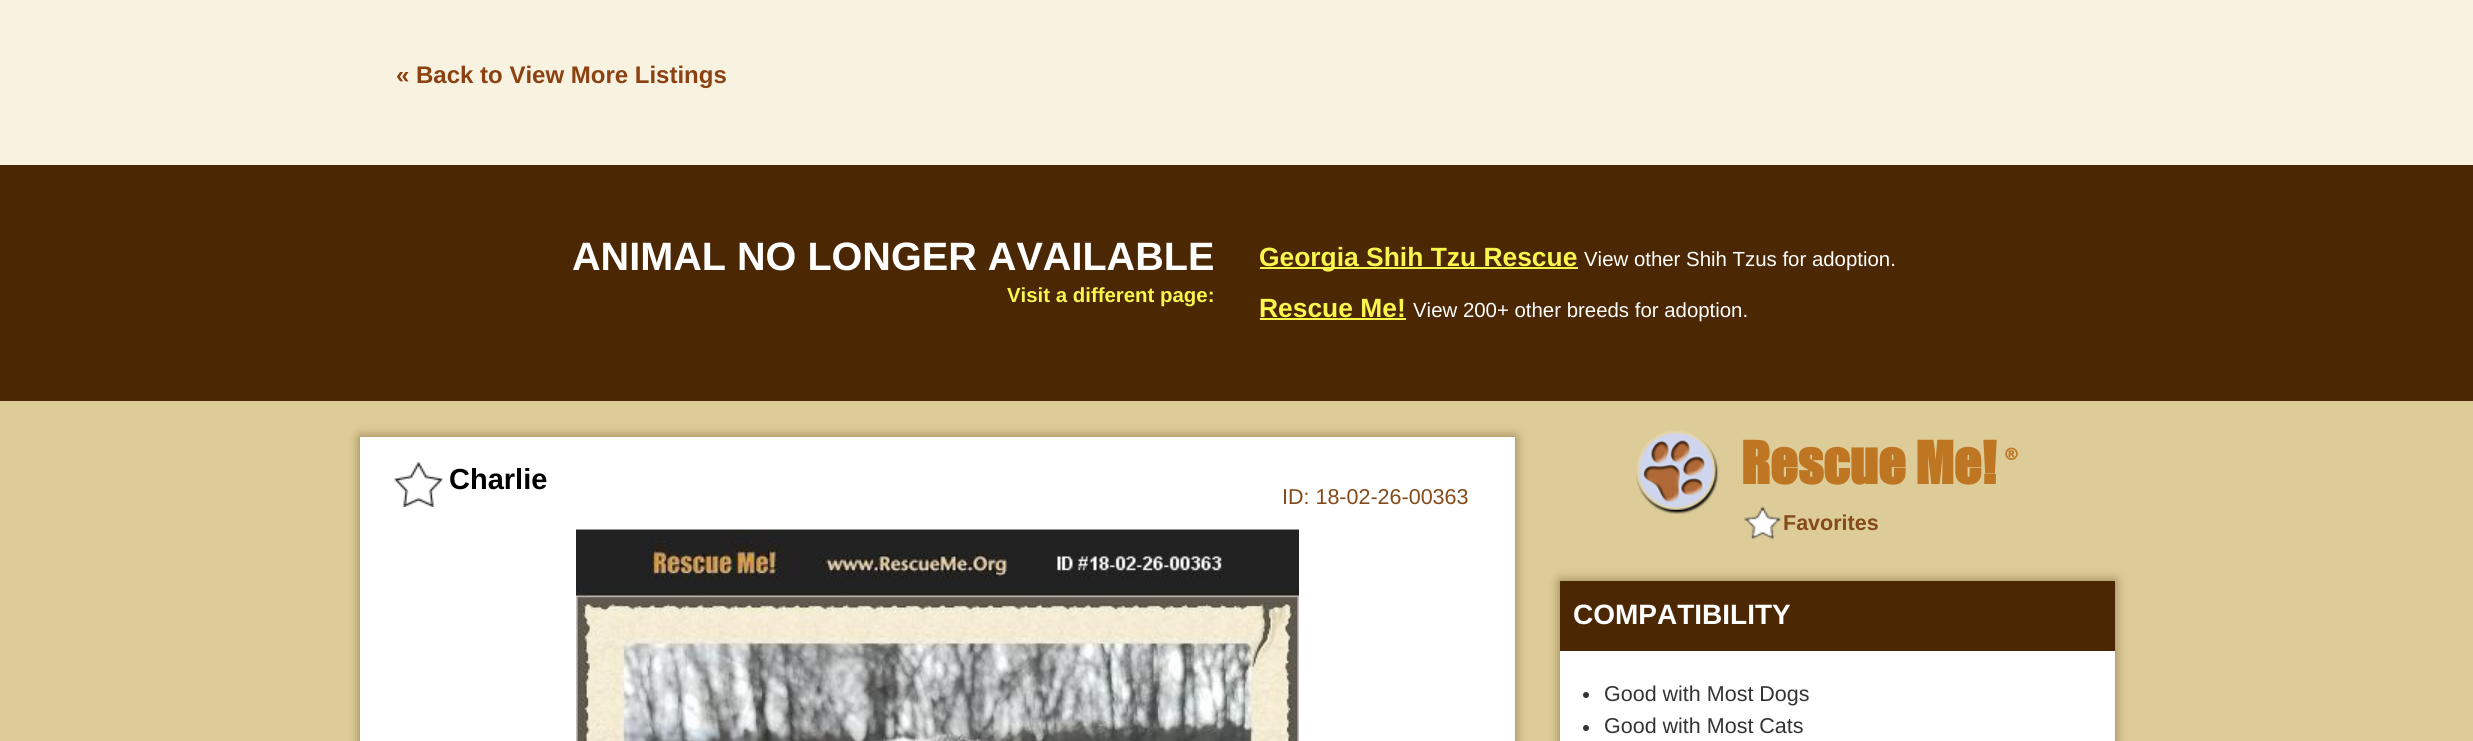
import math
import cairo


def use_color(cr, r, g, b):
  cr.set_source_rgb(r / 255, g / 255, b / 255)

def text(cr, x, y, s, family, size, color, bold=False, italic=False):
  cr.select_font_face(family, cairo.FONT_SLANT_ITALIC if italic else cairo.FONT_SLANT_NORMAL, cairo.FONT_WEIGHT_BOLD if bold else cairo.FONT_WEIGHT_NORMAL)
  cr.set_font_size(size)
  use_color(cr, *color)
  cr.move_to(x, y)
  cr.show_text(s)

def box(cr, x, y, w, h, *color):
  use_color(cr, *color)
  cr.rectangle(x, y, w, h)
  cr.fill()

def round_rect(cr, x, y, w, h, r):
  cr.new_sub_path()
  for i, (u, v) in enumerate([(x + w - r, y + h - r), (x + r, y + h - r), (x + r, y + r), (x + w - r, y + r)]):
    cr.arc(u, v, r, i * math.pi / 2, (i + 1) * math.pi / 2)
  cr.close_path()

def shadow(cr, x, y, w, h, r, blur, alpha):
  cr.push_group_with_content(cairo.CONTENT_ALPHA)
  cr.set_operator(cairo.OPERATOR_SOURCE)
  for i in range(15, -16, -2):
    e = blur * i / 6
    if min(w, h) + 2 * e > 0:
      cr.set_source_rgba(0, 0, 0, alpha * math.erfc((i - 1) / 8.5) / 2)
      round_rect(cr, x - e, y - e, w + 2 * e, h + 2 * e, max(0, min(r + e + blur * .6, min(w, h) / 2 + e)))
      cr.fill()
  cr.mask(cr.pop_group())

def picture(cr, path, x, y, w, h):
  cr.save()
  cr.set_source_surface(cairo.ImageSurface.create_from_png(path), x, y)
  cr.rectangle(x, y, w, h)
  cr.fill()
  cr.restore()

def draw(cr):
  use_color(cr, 221, 204, 152)
  cr.paint()
  box(cr, 0, 0, 2473, 165, 248, 243, 224)
  box(cr, 0, 165, 2473, 236, 75, 39, 3)
  box(cr, 1260, 267, 318, 2, 249, 247, 77)
  box(cr, 1260, 318, 146, 2, 249, 247, 77)
  use_color(cr, 75, 39, 3)
  shadow(cr, 360, 437, 1155, 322, 0, 6, 0.5)
  box(cr, 360, 437, 1155, 304, 255, 255, 255)
  picture(cr, "img_01.png", 394, 462, 49, 45)
  picture(cr, "img_02.png", 576, 529, 723, 212)
  picture(cr, "img_03.png", 1636, 430, 83, 84)
  picture(cr, "img_04.png", 1744, 506, 37, 33)
  use_color(cr, 75, 39, 3)
  shadow(cr, 1560, 581, 555, 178, 0, 6, 0.5)
  box(cr, 1560, 651, 555, 90, 255, 255, 255)
  box(cr, 1560, 581, 555, 70, 75, 39, 3)
  use_color(cr, 51, 51, 51)
  cr.arc(1586, 695, 3, 0, 2 * math.pi)
  cr.fill()
  cr.arc(1586, 728, 3, 0, 2 * math.pi)
  cr.fill()
  text(cr, 396, 83, "« Back to View More Listings", "Liberation Sans", 24, (139, 65, 18), bold=True)
  text(cr, 572, 270, "ANIMAL NO LONGER AVAILABLE", "Liberation Sans", 39.6, (255, 255, 255), bold=True)
  text(cr, 1007, 302, "Visit a different page:", "Liberation Sans", 20.4, (249, 247, 77), bold=True)
  text(cr, 1259, 266, "Georgia Shih Tzu Rescue", "Liberation Sans", 26.4, (249, 247, 77), bold=True)
  text(cr, 1584, 266, "View other Shih Tzus for adoption.", "Liberation Sans", 20.4, (255, 255, 255))
  text(cr, 1259, 317, "Rescue Me!", "Liberation Sans", 26.4, (249, 247, 77), bold=True)
  text(cr, 1413, 317, "View 200+ other breeds for adoption.", "Liberation Sans", 20.4, (255, 255, 255))
  text(cr, 449, 489, "Charlie", "Liberation Sans", 29, (0, 0, 0), bold=True)
  text(cr, 1282, 504, "ID: 18-02-26-00363", "Liberation Sans", 21.5, (132, 74, 25))
  text(cr, 1741, 484, "Rescue Me!", "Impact", 54, (190, 118, 34), bold=True)
  text(cr, 2005, 460, "®", "Impact", 16, (190, 118, 34), bold=True)
  text(cr, 1783, 530, "Favorites", "Liberation Sans", 21.5, (132, 74, 25), bold=True)
  text(cr, 1573, 624, "COMPATIBILITY", "Liberation Sans", 28, (255, 255, 255), bold=True)
  text(cr, 1604, 701, "Good with Most Dogs", "Liberation Sans", 21.5, (51, 51, 51))
  text(cr, 1604, 733, "Good with Most Cats", "Liberation Sans", 21.5, (51, 51, 51))


surface = cairo.ImageSurface(cairo.FORMAT_RGB24, 2473, 741)
cr = cairo.Context(surface)
options = cairo.FontOptions()
options.set_hint_metrics(cairo.HINT_METRICS_OFF)
options.set_hint_style(cairo.HINT_STYLE_NONE)
cr.set_font_options(options)
cr.set_miter_limit(4)
draw(cr)
surface.write_to_png("out.png")
